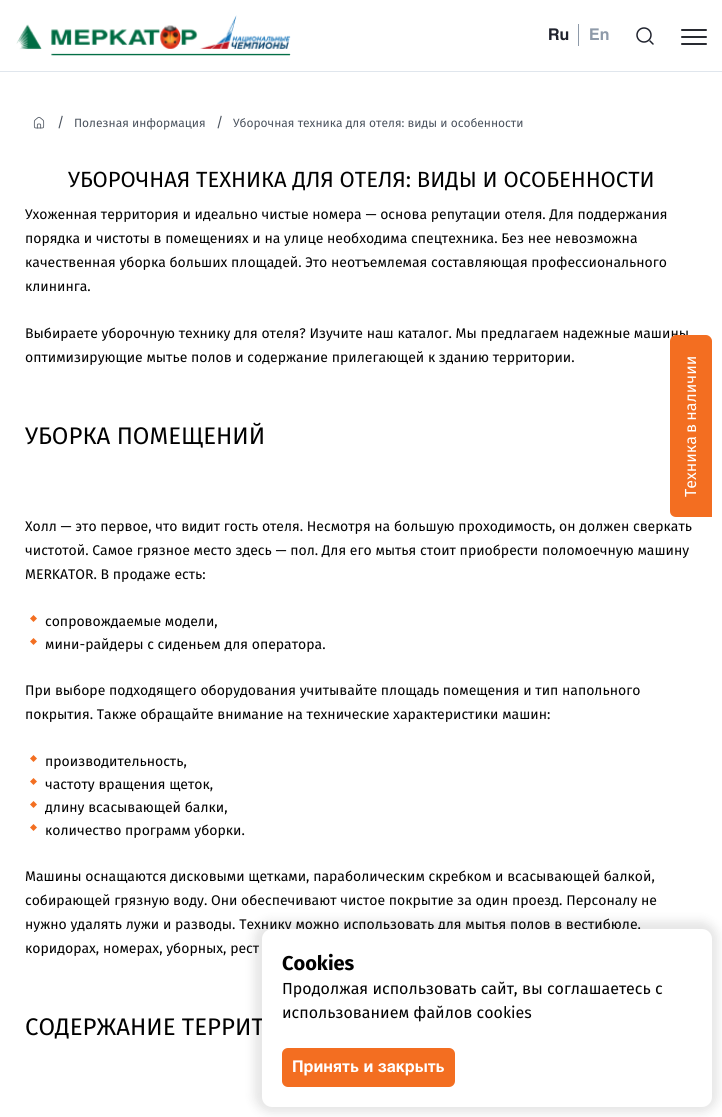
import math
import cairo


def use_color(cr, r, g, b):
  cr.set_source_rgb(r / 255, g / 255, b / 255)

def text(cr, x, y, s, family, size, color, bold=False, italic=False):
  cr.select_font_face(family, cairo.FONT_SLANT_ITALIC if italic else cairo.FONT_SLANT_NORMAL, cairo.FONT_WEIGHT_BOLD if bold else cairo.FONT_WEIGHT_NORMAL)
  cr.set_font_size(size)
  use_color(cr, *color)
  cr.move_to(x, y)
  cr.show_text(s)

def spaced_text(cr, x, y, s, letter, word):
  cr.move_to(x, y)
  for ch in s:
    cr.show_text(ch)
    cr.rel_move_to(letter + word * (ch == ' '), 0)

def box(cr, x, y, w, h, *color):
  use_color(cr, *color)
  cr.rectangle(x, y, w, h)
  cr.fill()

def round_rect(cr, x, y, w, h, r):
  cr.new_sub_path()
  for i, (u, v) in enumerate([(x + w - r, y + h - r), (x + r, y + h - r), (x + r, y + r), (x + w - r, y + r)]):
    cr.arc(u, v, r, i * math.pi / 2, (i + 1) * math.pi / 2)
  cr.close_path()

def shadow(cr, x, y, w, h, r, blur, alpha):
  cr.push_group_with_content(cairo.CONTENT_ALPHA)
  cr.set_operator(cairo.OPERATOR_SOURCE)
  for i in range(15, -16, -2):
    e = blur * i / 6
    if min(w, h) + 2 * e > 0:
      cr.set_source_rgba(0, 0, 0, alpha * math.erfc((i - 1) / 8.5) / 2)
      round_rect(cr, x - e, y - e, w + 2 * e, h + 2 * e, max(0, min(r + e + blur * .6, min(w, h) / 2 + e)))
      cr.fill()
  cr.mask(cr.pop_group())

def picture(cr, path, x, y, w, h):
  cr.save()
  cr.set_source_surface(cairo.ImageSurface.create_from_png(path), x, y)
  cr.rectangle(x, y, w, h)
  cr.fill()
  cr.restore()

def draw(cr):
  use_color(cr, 255, 255, 255)
  cr.paint()
  box(cr, 0, 71, 722, 1, 224, 230, 237)
  picture(cr, "img_01.png", 16, 15, 275, 41)
  box(cr, 578, 24, 1, 22, 142, 154, 169)
  cr.arc(644, 35, 7, 0, 2 * math.pi)
  use_color(cr, 31, 34, 45)
  cr.set_line_width(1.5)
  cr.stroke()
  cr.new_path()
  cr.move_to(653, 44)
  cr.line_to(650, 41)
  cr.set_line_cap(cairo.LINE_CAP_ROUND)
  cr.stroke()
  use_color(cr, 40, 42, 49)
  round_rect(cr, 681, 36, 26, 2, 1)
  cr.fill()
  round_rect(cr, 681, 29, 26, 2, 1)
  cr.fill()
  round_rect(cr, 681, 43, 26, 2, 1)
  cr.fill()
  picture(cr, "img_02.png", 33, 116, 12, 13)
  use_color(cr, 243, 111, 33)
  cr.new_path()
  cr.move_to(33.5, 615)
  cr.line_to(37, 618.5)
  cr.line_to(33.5, 622)
  cr.line_to(30, 618.5)
  cr.close_path()
  cr.fill()
  cr.new_path()
  cr.move_to(33.5, 638)
  cr.line_to(37, 641.5)
  cr.line_to(33.5, 645)
  cr.line_to(30, 641.5)
  cr.close_path()
  cr.fill()
  cr.new_path()
  cr.move_to(33.5, 755)
  cr.line_to(37, 758.5)
  cr.line_to(33.5, 762)
  cr.line_to(30, 758.5)
  cr.close_path()
  cr.fill()
  cr.new_path()
  cr.move_to(33.5, 778)
  cr.line_to(37, 781.5)
  cr.line_to(33.5, 785)
  cr.line_to(30, 781.5)
  cr.close_path()
  cr.fill()
  cr.new_path()
  cr.move_to(33.5, 801)
  cr.line_to(37, 804.5)
  cr.line_to(33.5, 808)
  cr.line_to(30, 804.5)
  cr.close_path()
  cr.fill()
  cr.new_path()
  cr.move_to(33.5, 824)
  cr.line_to(37, 827.5)
  cr.line_to(33.5, 831)
  cr.line_to(30, 827.5)
  cr.close_path()
  cr.fill()
  use_color(cr, 0, 0, 0)
  shadow(cr, 254, 921, 464, 192, 17, 5, 0.1)
  text(cr, 548, 40, "Ru", "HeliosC", 16, (31, 34, 45), bold=True)
  text(cr, 589, 40, "En", "HeliosC", 16, (142, 154, 169), bold=True)
  text(cr, 57, 127, "/", "Fira Sans", 14, (75, 83, 94))
  text(cr, 74, 127, "Полезная информация", "Fira Sans", 12, (75, 83, 94))
  text(cr, 216, 127, "/", "Fira Sans", 14, (75, 83, 94))
  text(cr, 233, 127, "Уборочная техника для отеля: виды и особенности", "Fira Sans", 12, (75, 83, 94))
  text(cr, 68, 187, "УБОРОЧНАЯ ТЕХНИКА ДЛЯ ОТЕЛЯ: ВИДЫ И ОСОБЕННОСТИ", "Fira Sans", 22, (1, 1, 1))
  text(cr, 25, 219, "Ухоженная территория и идеально чистые номера — основа репутации отеля. Для поддержания", "Fira Sans", 14, (1, 1, 1))
  text(cr, 25, 243, "порядка и чистоты в помещениях и на улице необходима спецтехника. Без нее невозможна", "Fira Sans", 14, (1, 1, 1))
  text(cr, 25, 267, "качественная уборка больших площадей. Это неотъемлемая составляющая профессионального", "Fira Sans", 14, (1, 1, 1))
  text(cr, 25, 291, "клининга.", "Fira Sans", 14, (1, 1, 1))
  text(cr, 25, 338, "Выбираете уборочную технику для отеля? Изучите наш каталог. Мы предлагаем надежные машины", "Fira Sans", 14, (1, 1, 1))
  text(cr, 25, 362, "оптимизирующие мытье полов и содержание прилегающей к зданию территории.", "Fira Sans", 14, (1, 1, 1))
  text(cr, 25, 444, "УБОРКА ПОМЕЩЕНИЙ", "Fira Sans", 24, (1, 1, 1))
  text(cr, 25, 531, "Холл — это первое, что видит гость отеля. Несмотря на большую проходимость, он должен сверкать", "Fira Sans", 14, (1, 1, 1))
  text(cr, 25, 555, "чистотой. Самое грязное место здесь — пол. Для его мытья стоит приобрести поломоечную машину", "Fira Sans", 14, (1, 1, 1))
  text(cr, 25, 579, "MERKATOR. В продаже есть:", "Fira Sans", 14, (1, 1, 1))
  text(cr, 45, 626, "сопровождаемые модели,", "Fira Sans", 14, (1, 1, 1))
  text(cr, 45, 649, "мини-райдеры с сиденьем для оператора.", "Fira Sans", 14, (1, 1, 1))
  text(cr, 25, 695, "При выборе подходящего оборудования учитывайте площадь помещения и тип напольного", "Fira Sans", 14, (1, 1, 1))
  text(cr, 25, 719, "покрытия. Также обращайте внимание на технические характеристики машин:", "Fira Sans", 14, (1, 1, 1))
  text(cr, 45, 766, "производительность,", "Fira Sans", 14, (1, 1, 1))
  text(cr, 45, 789, "частоту вращения щеток,", "Fira Sans", 14, (1, 1, 1))
  text(cr, 45, 812, "длину всасывающей балки,", "Fira Sans", 14, (1, 1, 1))
  text(cr, 45, 835, "количество программ уборки.", "Fira Sans", 14, (1, 1, 1))
  text(cr, 25, 881, "Машины оснащаются дисковыми щетками, параболическим скребком и всасывающей балкой,", "Fira Sans", 14, (1, 1, 1))
  text(cr, 25, 905, "собирающей грязную воду. Они обеспечивают чистое покрытие за один проезд. Персоналу не", "Fira Sans", 14, (1, 1, 1))
  text(cr, 25, 929, "нужно удалять лужи и разводы. Технику можно использовать для мытья полов в вестибюле,", "Fira Sans", 14, (1, 1, 1))
  text(cr, 25, 953, "коридорах, номерах, уборных, рест", "Fira Sans", 14, (1, 1, 1))
  text(cr, 25, 1035, "СОДЕРЖАНИЕ ТЕРРИТ", "Fira Sans", 24, (1, 1, 1))
  use_color(cr, 243, 110, 33)
  cr.new_path()
  cr.move_to(712, 517)
  cr.line_to(676, 517)
  cr.curve_to(673, 517, 670, 515, 670, 511)
  cr.line_to(670, 341)
  cr.curve_to(670, 338, 673, 335, 676, 335)
  cr.line_to(706, 335)
  cr.curve_to(709, 335, 712, 338, 712, 341)
  cr.close_path()
  cr.fill()
  cr.set_font_size(16)
  use_color(cr, 255, 255, 255)
  cr.save()
  cr.translate(696, 497)
  cr.rotate(-90 * math.pi / 180)
  spaced_text(cr, 0, 0, "Техника в наличии", 0, -1)
  cr.restore()
  round_rect(cr, 262, 929, 450, 178, 10)
  cr.fill()
  text(cr, 282, 970, "Cookies", "Fira Sans", 20, (1, 1, 1), bold=True)
  text(cr, 282, 994, "Продолжая использовать сайт, вы соглашаетесь с", "Fira Sans", 16, (1, 1, 1))
  text(cr, 282, 1018, "использованием файлов cookies", "Fira Sans", 16, (1, 1, 1))
  use_color(cr, 243, 110, 33)
  round_rect(cr, 282, 1048, 173, 39, 6)
  cr.fill()
  text(cr, 292, 1072, "Принять и закрыть", "HeliosC", 16, (255, 255, 255), bold=True)


surface = cairo.ImageSurface(cairo.FORMAT_RGB24, 722, 1117)
cr = cairo.Context(surface)
options = cairo.FontOptions()
options.set_hint_metrics(cairo.HINT_METRICS_OFF)
options.set_hint_style(cairo.HINT_STYLE_NONE)
cr.set_font_options(options)
cr.set_miter_limit(4)
draw(cr)
surface.write_to_png("out.png")
